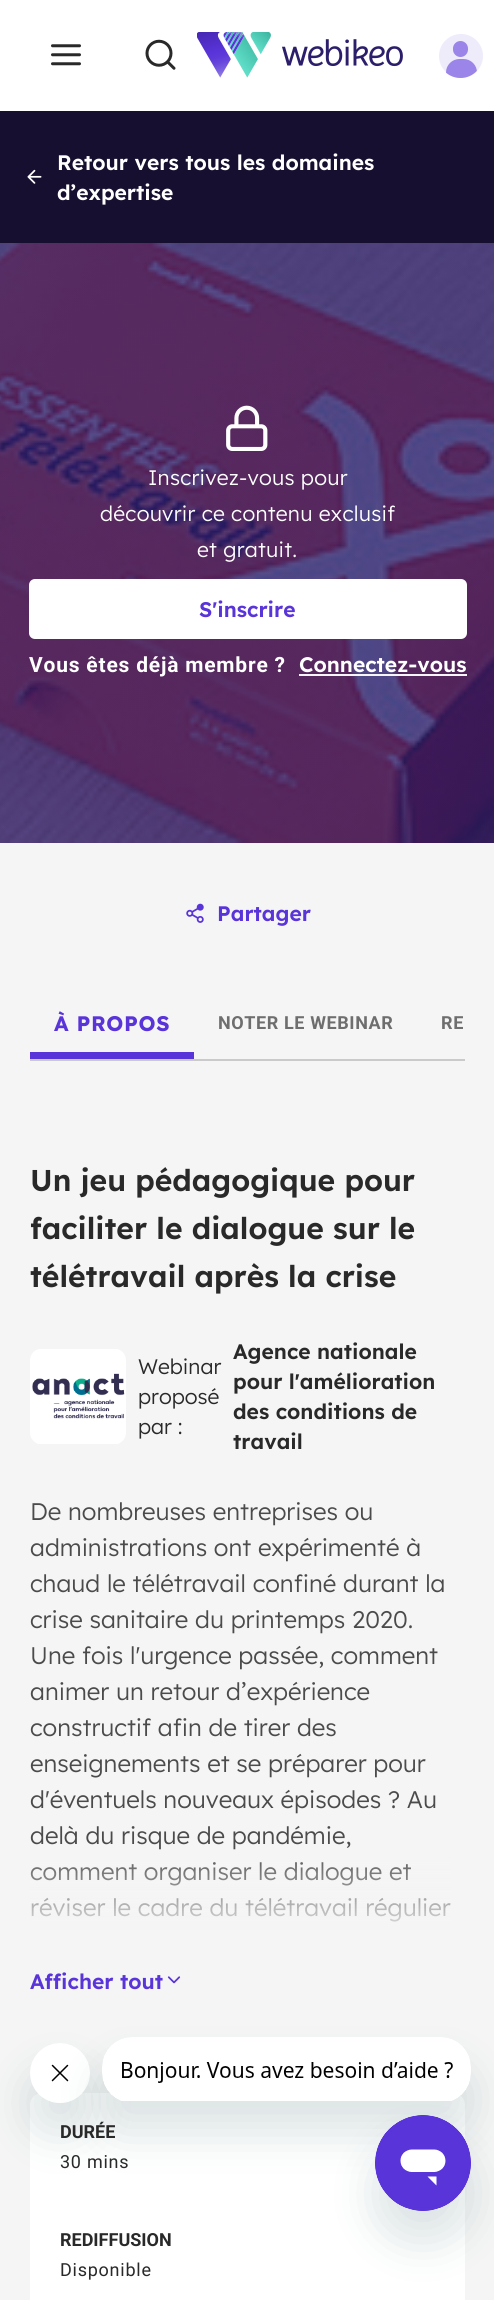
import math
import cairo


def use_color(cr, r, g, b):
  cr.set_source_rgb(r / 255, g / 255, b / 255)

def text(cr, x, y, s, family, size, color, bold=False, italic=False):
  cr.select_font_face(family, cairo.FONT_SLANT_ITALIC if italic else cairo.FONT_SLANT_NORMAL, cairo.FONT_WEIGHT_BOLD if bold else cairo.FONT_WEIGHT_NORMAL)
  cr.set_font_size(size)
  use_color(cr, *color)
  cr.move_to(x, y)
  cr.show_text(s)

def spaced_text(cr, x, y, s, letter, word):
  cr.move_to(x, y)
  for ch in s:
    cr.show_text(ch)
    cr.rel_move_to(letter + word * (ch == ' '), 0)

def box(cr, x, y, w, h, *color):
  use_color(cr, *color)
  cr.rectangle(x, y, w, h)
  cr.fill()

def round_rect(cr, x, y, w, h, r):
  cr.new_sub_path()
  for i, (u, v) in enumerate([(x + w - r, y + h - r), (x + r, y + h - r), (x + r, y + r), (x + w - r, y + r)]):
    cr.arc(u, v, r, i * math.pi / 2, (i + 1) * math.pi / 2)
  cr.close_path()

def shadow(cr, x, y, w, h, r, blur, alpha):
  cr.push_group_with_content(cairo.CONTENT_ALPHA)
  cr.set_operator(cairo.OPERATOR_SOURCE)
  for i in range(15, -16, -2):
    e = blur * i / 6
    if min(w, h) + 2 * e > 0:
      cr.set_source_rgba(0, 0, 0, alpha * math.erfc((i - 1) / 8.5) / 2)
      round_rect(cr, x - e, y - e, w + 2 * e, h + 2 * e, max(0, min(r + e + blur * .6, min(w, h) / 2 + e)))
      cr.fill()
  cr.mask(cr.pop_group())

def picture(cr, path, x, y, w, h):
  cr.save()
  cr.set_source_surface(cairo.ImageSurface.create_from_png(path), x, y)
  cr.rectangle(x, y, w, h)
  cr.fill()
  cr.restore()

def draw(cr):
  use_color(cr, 245, 245, 245)
  cr.paint()
  box(cr, 0, 0, 494, 111, 255, 255, 255)
  picture(cr, "img_01.png", 51, 44, 30, 22)
  picture(cr, "img_02.png", 145, 39, 31, 31)
  picture(cr, "img_03.png", 197, 32, 206, 46)
  use_color(cr, 238, 235, 251)
  cr.arc(461, 56, 23, 0, 2 * math.pi)
  cr.fill_preserve()
  use_color(cr, 255, 255, 255)
  cr.stroke()
  use_color(cr, 155, 133, 232)
  round_rect(cr, 453, 41, 15, 16, 7.5)
  cr.fill()
  cr.save()
  round_rect(cr, 438, 33, 45, 45, 22.5)
  cr.clip()
  round_rect(cr, 446, 59, 31, 27, 13.5)
  cr.fill()
  cr.restore()
  box(cr, 0, 111, 494, 132, 23, 15, 48)
  picture(cr, "img_04.png", 27, 169, 15, 15)
  picture(cr, "img_05.png", 0, 243, 494, 600)
  picture(cr, "img_06.png", 226, 405, 42, 46)
  use_color(cr, 255, 255, 255)
  round_rect(cr, 29, 579, 438, 60, 6)
  cr.fill()
  box(cr, 299, 674, 168, 2, 245, 245, 245)
  picture(cr, "img_07.png", 186, 903, 18, 20)
  box(cr, 30, 1059, 435, 2, 202, 202, 202)
  box(cr, 30, 1052, 164, 7, 89, 52, 217)
  picture(cr, "img_08.png", 30, 1349, 96, 95)
  picture(cr, "img_09.png", 167, 1976, 14, 8)
  use_color(cr, 255, 255, 255)
  round_rect(cr, 30, 2093, 435, 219, 12)
  cr.fill()
  cr.save()
  cr.set_fill_rule(cairo.FILL_RULE_EVEN_ODD)
  cr.new_path()
  cr.move_to(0, 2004)
  cr.line_to(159, 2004)
  cr.line_to(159, 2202)
  cr.line_to(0, 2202)
  cr.close_path()
  cr.move_to(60, 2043)
  cr.curve_to(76.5, 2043, 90, 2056.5, 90, 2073)
  cr.curve_to(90, 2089.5, 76.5, 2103, 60, 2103)
  cr.curve_to(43.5, 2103, 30, 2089.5, 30, 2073)
  cr.curve_to(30, 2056.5, 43.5, 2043, 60, 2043)
  cr.close_path()
  cr.clip()
  use_color(cr, 23, 73, 77)
  shadow(cr, 30, 2073, 60, 60, 30, 22.5, 0.15)
  cr.restore()
  picture(cr, "img_11.png", 30, 2043, 60, 51)
  use_color(cr, 23, 73, 77)
  shadow(cr, 102, 2067, 369, 66, 30, 22.5, 0.15)
  picture(cr, "img_10.png", 102, 2037, 369, 64)
  shadow(cr, 375, 2145, 96, 96, 48, 22.5, 0.15)
  picture(cr, "img_12.png", 375, 2115, 96, 96)
  text(cr, 57, 170, "Retour vers tous les domaines", "Lexend SemiBold", 21, (255, 255, 255))
  text(cr, 57, 200, "d’expertise", "Lexend SemiBold", 21, (255, 255, 255))
  cr.select_font_face("Lexend Light")
  spaced_text(cr, 148, 485, "Inscrivez-vous pour", 0.25, 0)
  spaced_text(cr, 100, 521, "découvrir ce contenu exclusif", 0.25, 0)
  spaced_text(cr, 197, 557, "et gratuit.", 0.25, 0)
  text(cr, 199, 617, "S'inscrire", "Lexend SemiBold", 21, (89, 52, 217))
  cr.select_font_face("Roboto", cairo.FONT_SLANT_NORMAL, cairo.FONT_WEIGHT_BOLD)
  use_color(cr, 255, 255, 255)
  spaced_text(cr, 29, 672, "Vous êtes déjà membre ?", 0.8, 0)
  text(cr, 299, 672, "Connectez-vous", "Lexend SemiBold", 21, (255, 255, 255))
  text(cr, 217, 921, "Partager", "Lexend SemiBold", 21, (89, 52, 217))
  cr.select_font_face("Lexend", cairo.FONT_SLANT_NORMAL, cairo.FONT_WEIGHT_BOLD)
  spaced_text(cr, 54, 1031, "À PROPOS", 0.6, 0)
  cr.select_font_face("Roboto", cairo.FONT_SLANT_NORMAL, cairo.FONT_WEIGHT_BOLD)
  cr.set_font_size(18)
  use_color(cr, 110, 110, 110)
  spaced_text(cr, 218, 1029, "NOTER LE WEBINAR", 0.6, 0)
  spaced_text(cr, 441, 1029, "RE", 0.6, 0)
  text(cr, 30, 1191, "Un jeu pédagogique pour", "Lexend SemiBold", 30, (41, 41, 41))
  text(cr, 30, 1239, "faciliter le dialogue sur le", "Lexend SemiBold", 30, (41, 41, 41))
  text(cr, 30, 1287, "télétravail après la crise", "Lexend SemiBold", 30, (41, 41, 41))
  text(cr, 138, 1374, "Webinar", "Lexend Light", 21, (41, 41, 41))
  text(cr, 138, 1404, "proposé", "Lexend Light", 21, (41, 41, 41))
  text(cr, 138, 1434, "par :", "Lexend Light", 21, (41, 41, 41))
  text(cr, 233, 1359, "Agence nationale", "Lexend SemiBold", 21, (41, 41, 41))
  text(cr, 233, 1389, "pour l'amélioration", "Lexend SemiBold", 21, (41, 41, 41))
  text(cr, 233, 1419, "des conditions de", "Lexend SemiBold", 21, (41, 41, 41))
  text(cr, 233, 1449, "travail", "Lexend SemiBold", 21, (41, 41, 41))
  text(cr, 30, 1520, "De nombreuses entreprises ou", "Lexend Light", 24, (75, 75, 75))
  text(cr, 30, 1556, "administrations ont expérimenté à", "Lexend Light", 24, (75, 75, 75))
  text(cr, 30, 1592, "chaud le télétravail confiné durant la", "Lexend Light", 24, (75, 75, 75))
  text(cr, 30, 1628, "crise sanitaire du printemps 2020.", "Lexend Light", 24, (75, 75, 75))
  text(cr, 30, 1664, "Une fois l'urgence passée, comment", "Lexend Light", 24, (75, 75, 75))
  text(cr, 30, 1700, "animer un retour d’expérience", "Lexend Light", 24, (75, 75, 75))
  text(cr, 30, 1736, "constructif afin de tirer des", "Lexend Light", 24, (75, 75, 75))
  text(cr, 30, 1772, "enseignements et se préparer pour", "Lexend Light", 24, (75, 75, 75))
  text(cr, 30, 1808, "d'éventuels nouveaux épisodes ? Au", "Lexend Light", 24, (75, 75, 75))
  text(cr, 30, 1844, "delà du risque de pandémie,", "Lexend Light", 24, (75, 75, 75))
  text(cr, 30, 1880, "comment organiser le dialogue et", "Lexend Light", 24, (75, 75, 75))
  text(cr, 30, 1916, "réviser le cadre du télétravail régulier", "Lexend Light", 24, (75, 75, 75))
  gradient = cairo.LinearGradient(248, 1847, 248, 1943)
  gradient.add_color_stop_rgba(0, 0.961, 0.961, 0.961, 0)
  gradient.add_color_stop_rgba(1, 0.961, 0.961, 0.961, 1)
  cr.set_source(gradient)
  cr.rectangle(30, 1862, 421, 60)
  cr.fill()
  text(cr, 30, 1989, "Afficher tout", "Lexend SemiBold", 21, (89, 52, 217))
  text(cr, 60, 2138, "DURÉE", "Roboto", 18, (41, 41, 41), bold=True)
  cr.select_font_face("Roboto")
  spaced_text(cr, 60, 2168, "30 mins", 0.75, 0)
  text(cr, 60, 2246, "REDIFFUSION", "Roboto", 18, (41, 41, 41), bold=True)
  cr.select_font_face("Roboto")
  spaced_text(cr, 60, 2276, "Disponible", 0.75, 0)


surface = cairo.ImageSurface(cairo.FORMAT_RGB24, 494, 2300)
cr = cairo.Context(surface)
options = cairo.FontOptions()
options.set_hint_metrics(cairo.HINT_METRICS_OFF)
options.set_hint_style(cairo.HINT_STYLE_NONE)
cr.set_font_options(options)
cr.set_miter_limit(4)
draw(cr)
surface.write_to_png("out.png")
